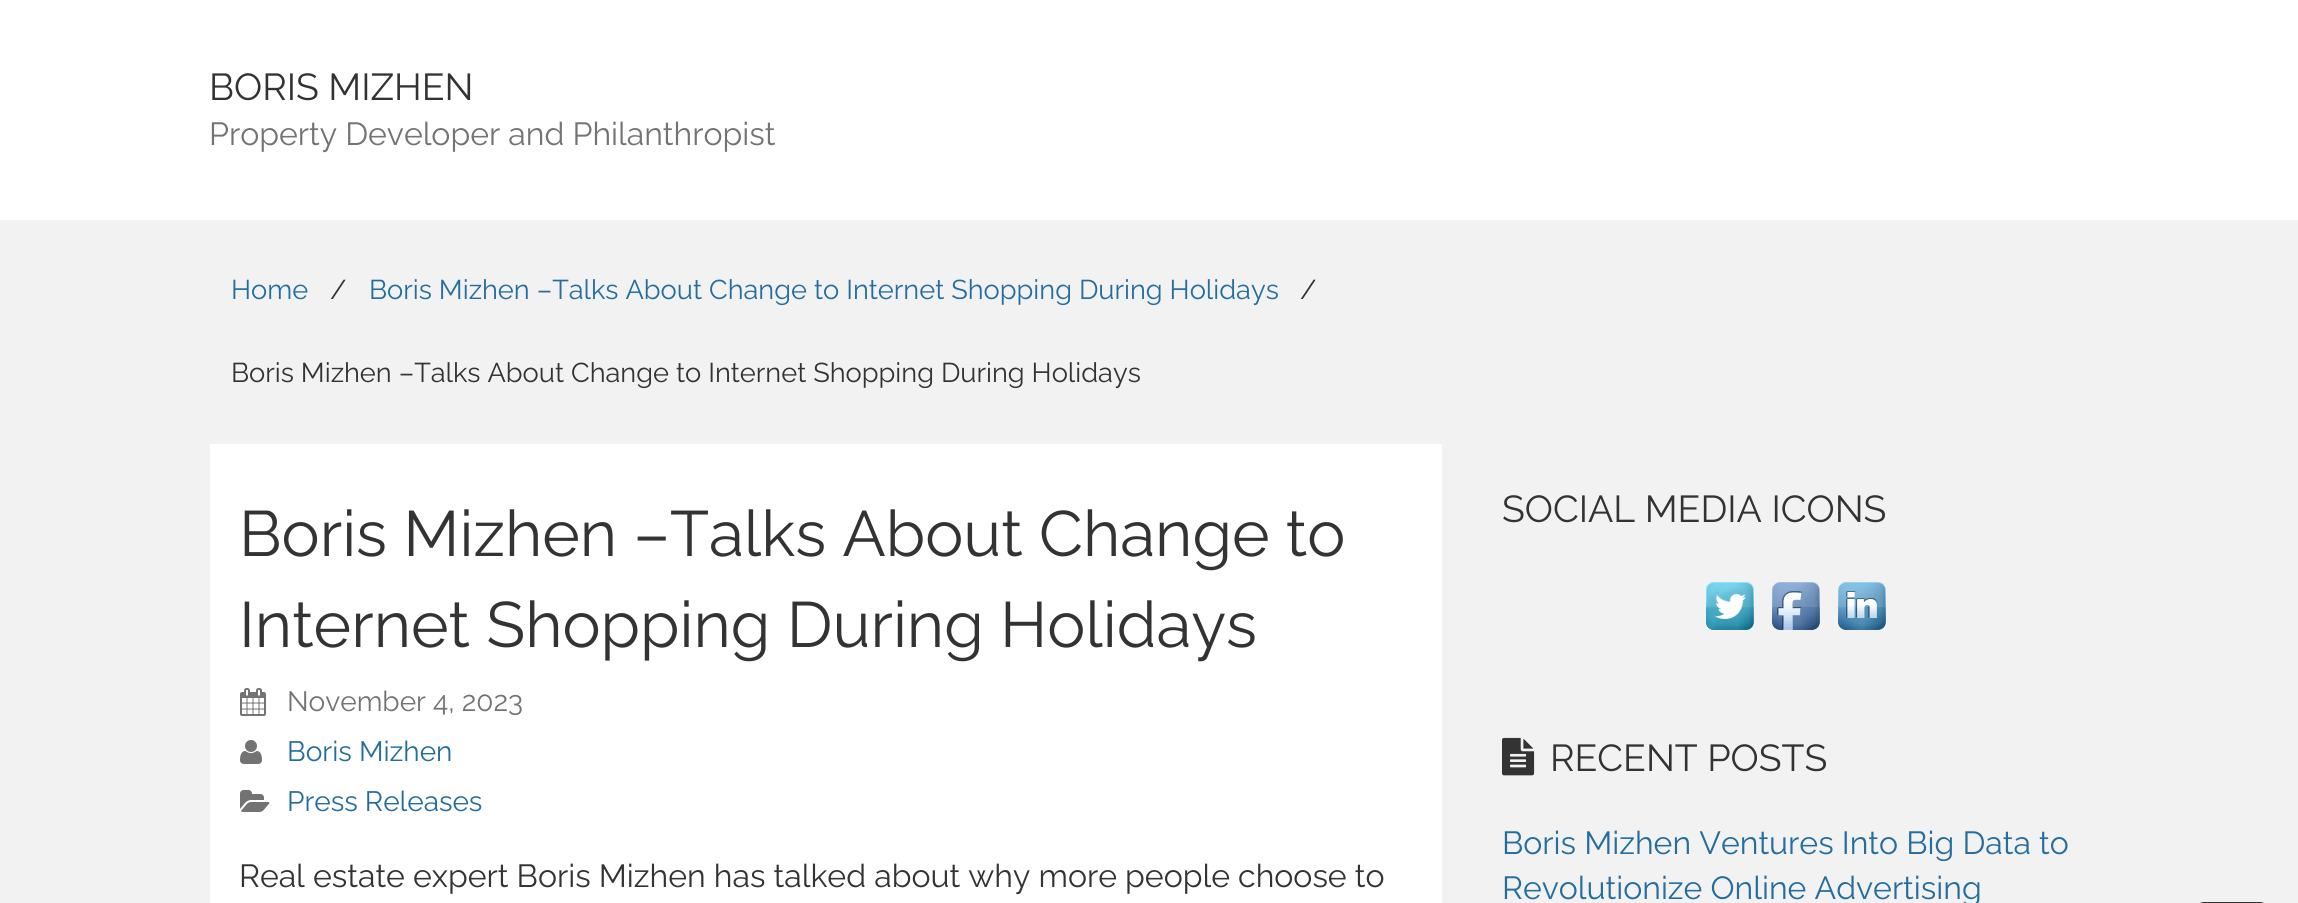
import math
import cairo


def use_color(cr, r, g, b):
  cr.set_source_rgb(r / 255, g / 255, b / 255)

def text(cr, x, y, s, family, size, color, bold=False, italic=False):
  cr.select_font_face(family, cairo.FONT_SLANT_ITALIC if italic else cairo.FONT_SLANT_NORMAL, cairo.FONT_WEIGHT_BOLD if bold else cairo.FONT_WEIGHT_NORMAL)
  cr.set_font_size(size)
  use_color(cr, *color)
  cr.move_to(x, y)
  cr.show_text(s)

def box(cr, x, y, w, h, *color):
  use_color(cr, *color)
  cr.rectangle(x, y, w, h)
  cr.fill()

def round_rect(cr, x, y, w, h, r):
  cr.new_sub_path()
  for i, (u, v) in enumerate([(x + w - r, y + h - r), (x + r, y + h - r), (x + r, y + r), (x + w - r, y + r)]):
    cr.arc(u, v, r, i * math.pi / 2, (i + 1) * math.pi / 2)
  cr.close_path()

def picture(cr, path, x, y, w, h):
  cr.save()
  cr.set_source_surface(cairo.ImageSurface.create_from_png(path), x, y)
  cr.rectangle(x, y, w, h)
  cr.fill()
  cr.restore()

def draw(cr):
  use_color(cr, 242, 242, 242)
  cr.paint()
  box(cr, 0, 0, 2298, 220, 255, 255, 255)
  box(cr, 210, 444, 1232, 459, 255, 255, 255)
  picture(cr, "img_01.png", 240, 688, 26, 28)
  picture(cr, "img_02.png", 240, 740, 22, 24)
  picture(cr, "img_03.png", 240, 790, 30, 22)
  picture(cr, "img_04.png", 1706, 582, 48, 48)
  picture(cr, "img_05.png", 1772, 582, 48, 48)
  picture(cr, "img_06.png", 1838, 582, 48, 48)
  picture(cr, "img_07.png", 1502, 737, 33, 39)
  round_rect(cr, 2197, 903, 70, 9, 7)
  use_color(cr, 51, 51, 51)
  cr.stroke()
  text(cr, 209, 100, "BORIS MIZHEN", "Raleway", 37.5, (51, 51, 51))
  text(cr, 209, 145, "Property Developer and Philanthropist", "Raleway", 32, (115, 115, 115))
  text(cr, 231, 299, "Home", "Raleway", 27.2, (36, 109, 159))
  text(cr, 330, 299, "/", "Raleway", 27.2, (51, 51, 51))
  text(cr, 369, 299, "Boris Mizhen –Talks About Change to Internet Shopping During Holidays", "Raleway", 27.2, (36, 109, 159))
  text(cr, 1300, 299, "/", "Raleway", 27.2, (51, 51, 51))
  text(cr, 231, 382, "Boris Mizhen –Talks About Change to Internet Shopping During Holidays", "Raleway", 27.2, (51, 51, 51))
  text(cr, 239, 556, "Boris Mizhen –Talks About Change to", "Raleway", 64, (51, 51, 51))
  text(cr, 239, 647, "Internet Shopping During Holidays", "Raleway", 64, (51, 51, 51))
  text(cr, 287, 711, "November 4, 2023", "Raleway", 28, (115, 115, 115))
  text(cr, 287, 761, "Boris Mizhen", "Raleway", 28, (36, 109, 159))
  text(cr, 287, 811, "Press Releases", "Raleway", 28, (36, 109, 159))
  text(cr, 239, 887, "Real estate expert Boris Mizhen has talked about why more people choose to", "Raleway", 32, (51, 51, 51))
  text(cr, 1502, 522, "SOCIAL MEDIA ICONS", "Raleway", 37.5, (51, 51, 51))
  text(cr, 1550, 771, "RECENT POSTS", "Raleway", 37.5, (51, 51, 51))
  text(cr, 1502, 854, "Boris Mizhen Ventures Into Big Data to", "Raleway", 32, (36, 109, 159))
  text(cr, 1502, 899, "Revolutionize Online Advertising", "Raleway", 32, (36, 109, 159))


surface = cairo.ImageSurface(cairo.FORMAT_RGB24, 2298, 903)
cr = cairo.Context(surface)
options = cairo.FontOptions()
options.set_hint_metrics(cairo.HINT_METRICS_OFF)
options.set_hint_style(cairo.HINT_STYLE_NONE)
cr.set_font_options(options)
cr.set_miter_limit(4)
draw(cr)
surface.write_to_png("out.png")
